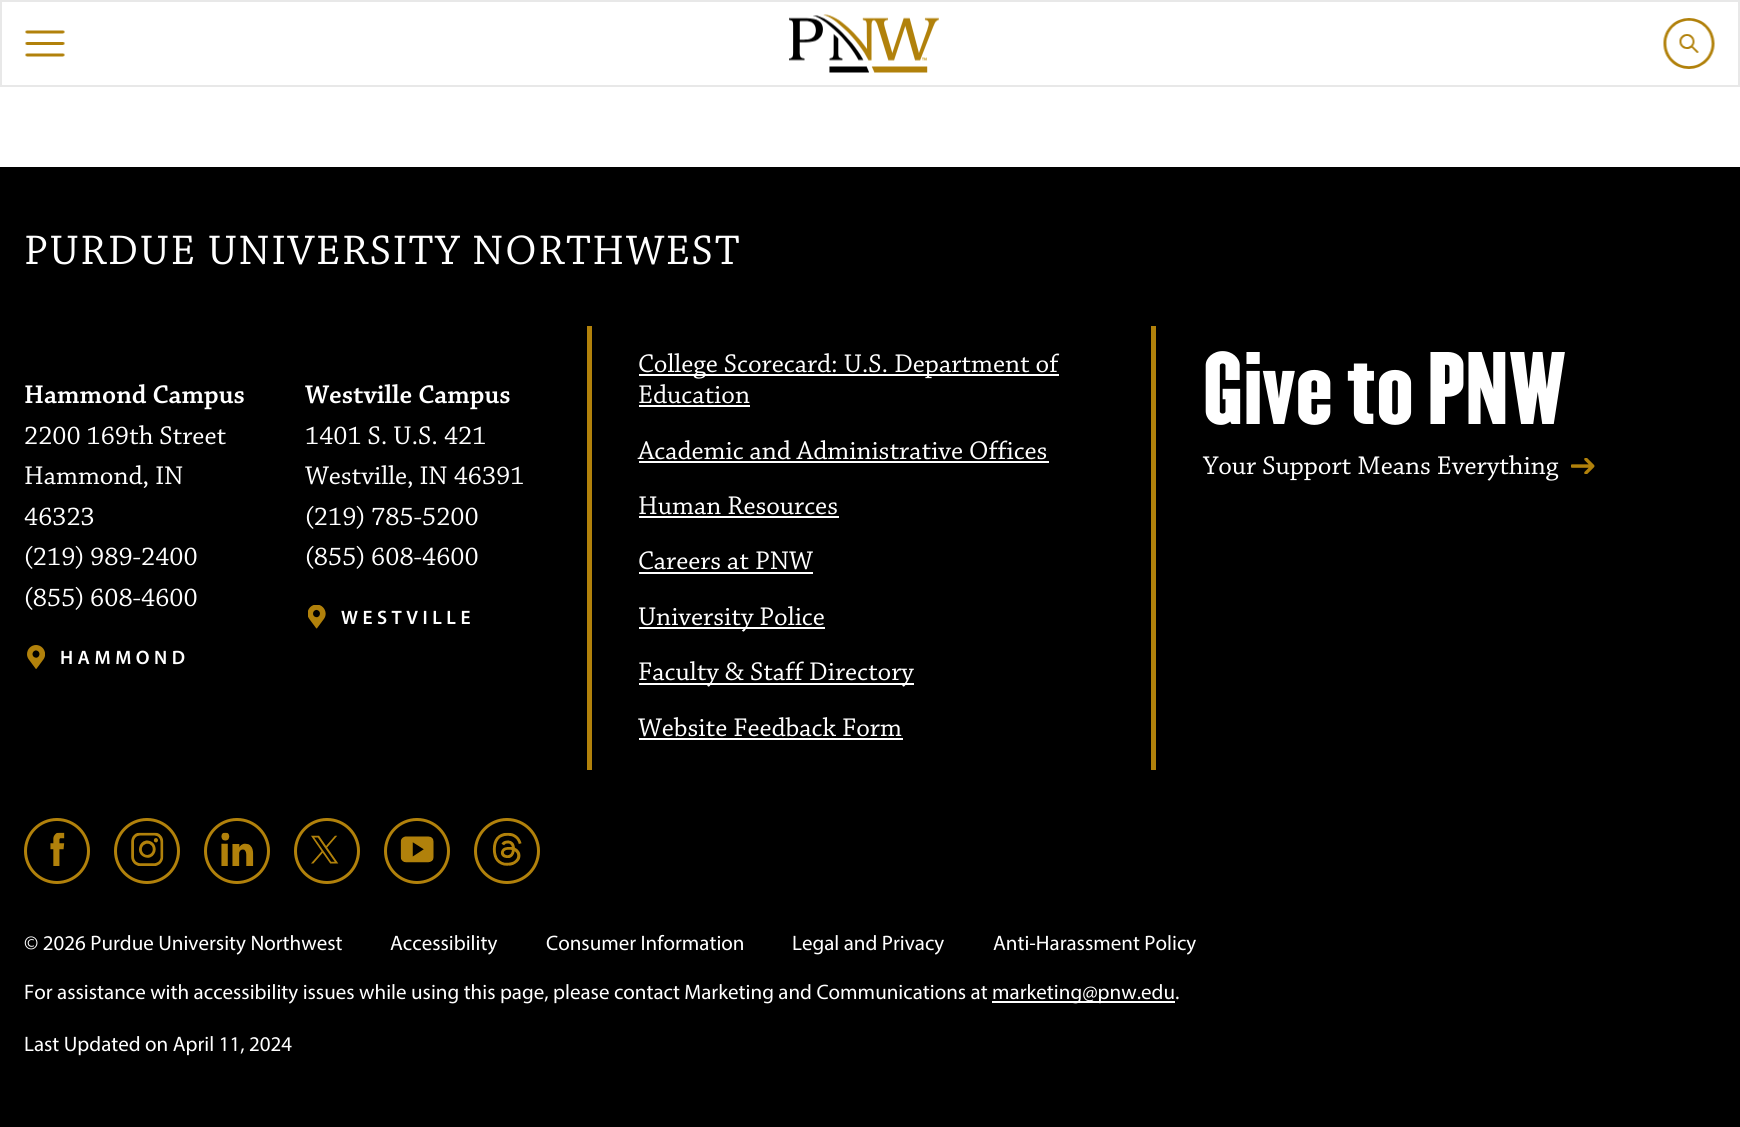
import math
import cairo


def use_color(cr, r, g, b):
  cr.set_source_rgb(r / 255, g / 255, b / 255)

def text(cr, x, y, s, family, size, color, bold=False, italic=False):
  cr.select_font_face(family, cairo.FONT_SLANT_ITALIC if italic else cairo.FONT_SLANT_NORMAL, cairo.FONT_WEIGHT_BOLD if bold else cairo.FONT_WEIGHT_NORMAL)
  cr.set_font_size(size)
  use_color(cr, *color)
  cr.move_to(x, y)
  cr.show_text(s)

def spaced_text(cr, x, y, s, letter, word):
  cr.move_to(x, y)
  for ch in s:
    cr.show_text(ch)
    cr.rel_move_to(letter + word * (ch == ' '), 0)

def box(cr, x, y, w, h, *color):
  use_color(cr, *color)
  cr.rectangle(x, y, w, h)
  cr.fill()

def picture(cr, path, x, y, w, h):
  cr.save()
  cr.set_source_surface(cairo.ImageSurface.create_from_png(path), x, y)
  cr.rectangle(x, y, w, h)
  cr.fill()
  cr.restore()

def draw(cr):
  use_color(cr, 255, 255, 255)
  cr.paint()
  cr.rectangle(1, 1, 1738, 85)
  use_color(cr, 232, 232, 232)
  cr.stroke()
  picture(cr, "img_01.png", 25, 30, 40, 27)
  picture(cr, "img_02.png", 789, 14, 150, 59)
  picture(cr, "img_03.png", 1663, 18, 52, 51)
  box(cr, 0, 167, 1740, 960, 0, 0, 0)
  picture(cr, "img_04.png", 27, 645, 18, 24)
  picture(cr, "img_05.png", 308, 605, 18, 24)
  box(cr, 587, 326, 5, 444, 177, 129, 11)
  box(cr, 639, 374, 420, 2, 255, 255, 255)
  box(cr, 639, 405, 111, 2, 255, 255, 255)
  box(cr, 639, 461, 410, 2, 255, 255, 255)
  box(cr, 639, 516, 200, 2, 255, 255, 255)
  box(cr, 639, 572, 174, 2, 255, 255, 255)
  box(cr, 639, 627, 186, 2, 255, 255, 255)
  box(cr, 639, 683, 275, 2, 255, 255, 255)
  box(cr, 639, 738, 264, 2, 255, 255, 255)
  box(cr, 1151, 326, 5, 444, 177, 129, 11)
  picture(cr, "img_06.png", 1571, 458, 24, 16)
  cr.arc(57, 851, 31.5, 0, 2 * math.pi)
  cr.set_line_width(3)
  cr.stroke()
  picture(cr, "img_07.png", 50, 832, 15, 34)
  cr.arc(147, 851, 31.5, 0, 2 * math.pi)
  cr.stroke()
  picture(cr, "img_08.png", 131, 832, 33, 34)
  cr.arc(237, 851, 31.5, 0, 2 * math.pi)
  cr.stroke()
  picture(cr, "img_09.png", 221, 832, 33, 34)
  cr.arc(327, 851, 31.5, 0, 2 * math.pi)
  cr.stroke()
  picture(cr, "img_10.png", 311, 835, 28, 29)
  cr.arc(417, 851, 31.5, 0, 2 * math.pi)
  cr.stroke()
  picture(cr, "img_11.png", 400, 836, 34, 27)
  cr.arc(507, 851, 31.5, 0, 2 * math.pi)
  cr.stroke()
  picture(cr, "img_12.png", 492, 832, 30, 34)
  box(cr, 992, 1001, 183, 2, 255, 255, 255)
  cr.select_font_face("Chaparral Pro")
  cr.set_font_size(43.5)
  spaced_text(cr, 24, 264, "PURDUE UNIVERSITY NORTHWEST", 1.7, 0)
  text(cr, 24, 403, "Hammond Campus", "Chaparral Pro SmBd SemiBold", 27, (255, 255, 255))
  text(cr, 24, 444, "2200 169th Street", "Chaparral Pro", 27, (255, 255, 255))
  text(cr, 24, 484, "Hammond, IN", "Chaparral Pro", 27, (255, 255, 255))
  text(cr, 24, 525, "46323", "Chaparral Pro", 27, (255, 255, 255))
  text(cr, 24, 565, "(219) 989-2400", "Chaparral Pro", 27, (255, 255, 255))
  text(cr, 24, 606, "(855) 608-4600", "Chaparral Pro", 27, (255, 255, 255))
  cr.select_font_face("Myriad SemiBold")
  cr.set_font_size(19.5)
  spaced_text(cr, 60, 664, "HAMMOND", 4.5, 0)
  text(cr, 305, 403, "Westville Campus", "Chaparral Pro SmBd SemiBold", 27, (255, 255, 255))
  text(cr, 305, 444, "1401 S. U.S. 421", "Chaparral Pro", 27, (255, 255, 255))
  text(cr, 305, 484, "Westville, IN 46391", "Chaparral Pro", 27, (255, 255, 255))
  text(cr, 305, 525, "(219) 785-5200", "Chaparral Pro", 27, (255, 255, 255))
  text(cr, 305, 565, "(855) 608-4600", "Chaparral Pro", 27, (255, 255, 255))
  cr.select_font_face("Myriad SemiBold")
  cr.set_font_size(19.5)
  spaced_text(cr, 341, 624, "WESTVILLE", 4.5, 0)
  text(cr, 638, 372, "College Scorecard: U.S. Department of", "Chaparral Pro", 27, (255, 255, 255))
  text(cr, 638, 403, "Education", "Chaparral Pro", 27, (255, 255, 255))
  text(cr, 638, 459, "Academic and Administrative Offices", "Chaparral Pro", 27, (255, 255, 255))
  text(cr, 638, 514, "Human Resources", "Chaparral Pro", 27, (255, 255, 255))
  text(cr, 638, 569, "Careers at PNW", "Chaparral Pro", 27, (255, 255, 255))
  text(cr, 638, 625, "University Police", "Chaparral Pro", 27, (255, 255, 255))
  text(cr, 638, 680, "Faculty & Staff Directory", "Chaparral Pro", 27, (255, 255, 255))
  text(cr, 638, 736, "Website Feedback Form", "Chaparral Pro", 27, (255, 255, 255))
  text(cr, 1203, 424, "Give to PNW", "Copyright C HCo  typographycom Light", 90, (255, 255, 255))
  text(cr, 1203, 474, "Your Support Means Everything", "Chaparral Pro", 27, (255, 255, 255))
  text(cr, 24, 950, "© 2026 Purdue University Northwest", "Myriad", 21, (255, 255, 255))
  text(cr, 390, 950, "Accessibility", "Myriad", 21, (255, 255, 255))
  text(cr, 546, 950, "Consumer Information", "Myriad", 21, (255, 255, 255))
  text(cr, 792, 950, "Legal and Privacy", "Myriad", 21, (255, 255, 255))
  text(cr, 993, 950, "Anti-Harassment Policy", "Myriad", 21, (255, 255, 255))
  text(cr, 24, 999, "For assistance with accessibility issues while using this page, please contact Marketing and Communications at", "Myriad", 21, (255, 255, 255))
  text(cr, 992, 999, "marketing@pnw.edu.", "Myriad", 21, (255, 255, 255))
  text(cr, 24, 1051, "Last Updated on April 11, 2024", "Myriad", 21, (255, 255, 255))


surface = cairo.ImageSurface(cairo.FORMAT_RGB24, 1740, 1127)
cr = cairo.Context(surface)
options = cairo.FontOptions()
options.set_hint_metrics(cairo.HINT_METRICS_OFF)
options.set_hint_style(cairo.HINT_STYLE_NONE)
cr.set_font_options(options)
cr.set_miter_limit(4)
draw(cr)
surface.write_to_png("out.png")
